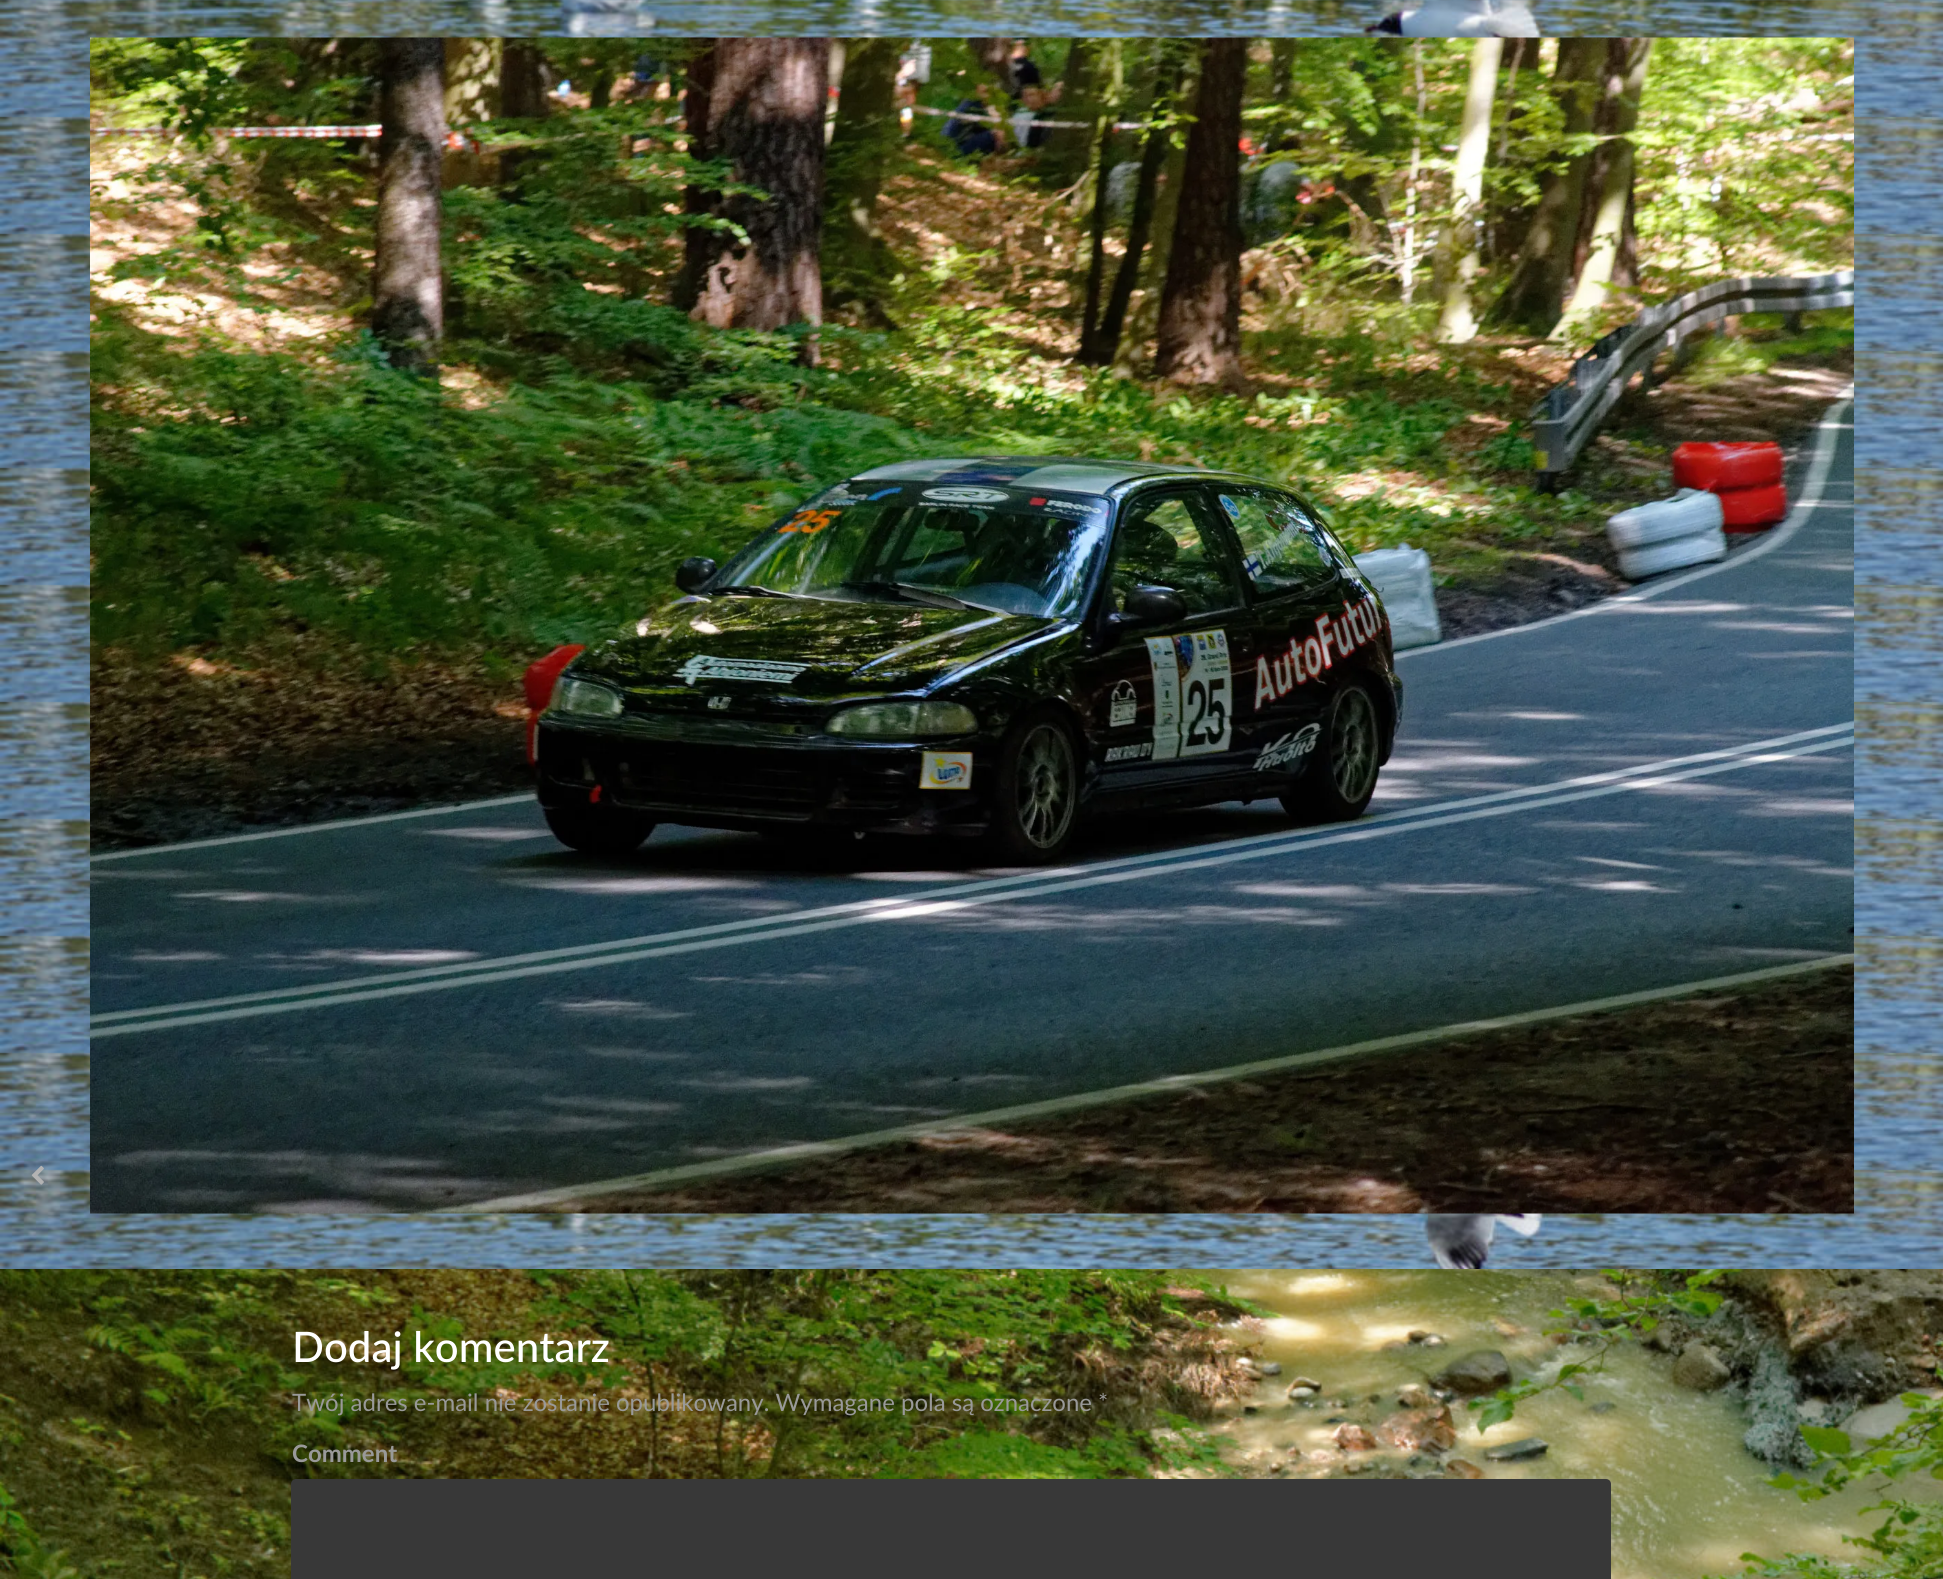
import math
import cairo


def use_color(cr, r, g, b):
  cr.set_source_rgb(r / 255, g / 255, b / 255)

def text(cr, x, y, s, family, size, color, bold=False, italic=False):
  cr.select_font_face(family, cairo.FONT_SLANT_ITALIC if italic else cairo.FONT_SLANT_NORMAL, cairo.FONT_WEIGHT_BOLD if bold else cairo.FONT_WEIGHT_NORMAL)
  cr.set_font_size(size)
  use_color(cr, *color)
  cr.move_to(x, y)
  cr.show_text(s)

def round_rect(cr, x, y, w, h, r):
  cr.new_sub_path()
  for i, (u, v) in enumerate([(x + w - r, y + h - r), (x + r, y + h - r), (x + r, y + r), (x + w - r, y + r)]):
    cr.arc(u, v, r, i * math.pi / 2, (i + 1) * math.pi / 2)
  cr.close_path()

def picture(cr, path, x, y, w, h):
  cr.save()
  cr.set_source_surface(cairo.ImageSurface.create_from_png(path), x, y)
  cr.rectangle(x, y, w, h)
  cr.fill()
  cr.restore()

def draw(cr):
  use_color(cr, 255, 255, 255)
  cr.paint()
  picture(cr, "img_01.png", 0, 1269, 1943, 310)
  picture(cr, "img_02.png", 0, 0, 1943, 1269)
  picture(cr, "img_03.png", 90, 37, 1764, 1177)
  picture(cr, "img_04.png", 31, 1165, 13, 20)
  use_color(cr, 56, 56, 56)
  round_rect(cr, 291, 1479, 1320, 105, 5)
  cr.fill()
  text(cr, 292, 1362, "Dodaj komentarz", "Lato Medium", 42, (255, 255, 255))
  text(cr, 292, 1411, "Twój adres e-mail nie zostanie opublikowany. Wymagane pola są oznaczone *", "Lato", 24, (153, 153, 153))
  text(cr, 292, 1462, "Comment", "Lato", 24, (153, 153, 153), bold=True)


surface = cairo.ImageSurface(cairo.FORMAT_RGB24, 1943, 1579)
cr = cairo.Context(surface)
options = cairo.FontOptions()
options.set_hint_metrics(cairo.HINT_METRICS_OFF)
options.set_hint_style(cairo.HINT_STYLE_NONE)
cr.set_font_options(options)
cr.set_miter_limit(4)
draw(cr)
surface.write_to_png("out.png")
